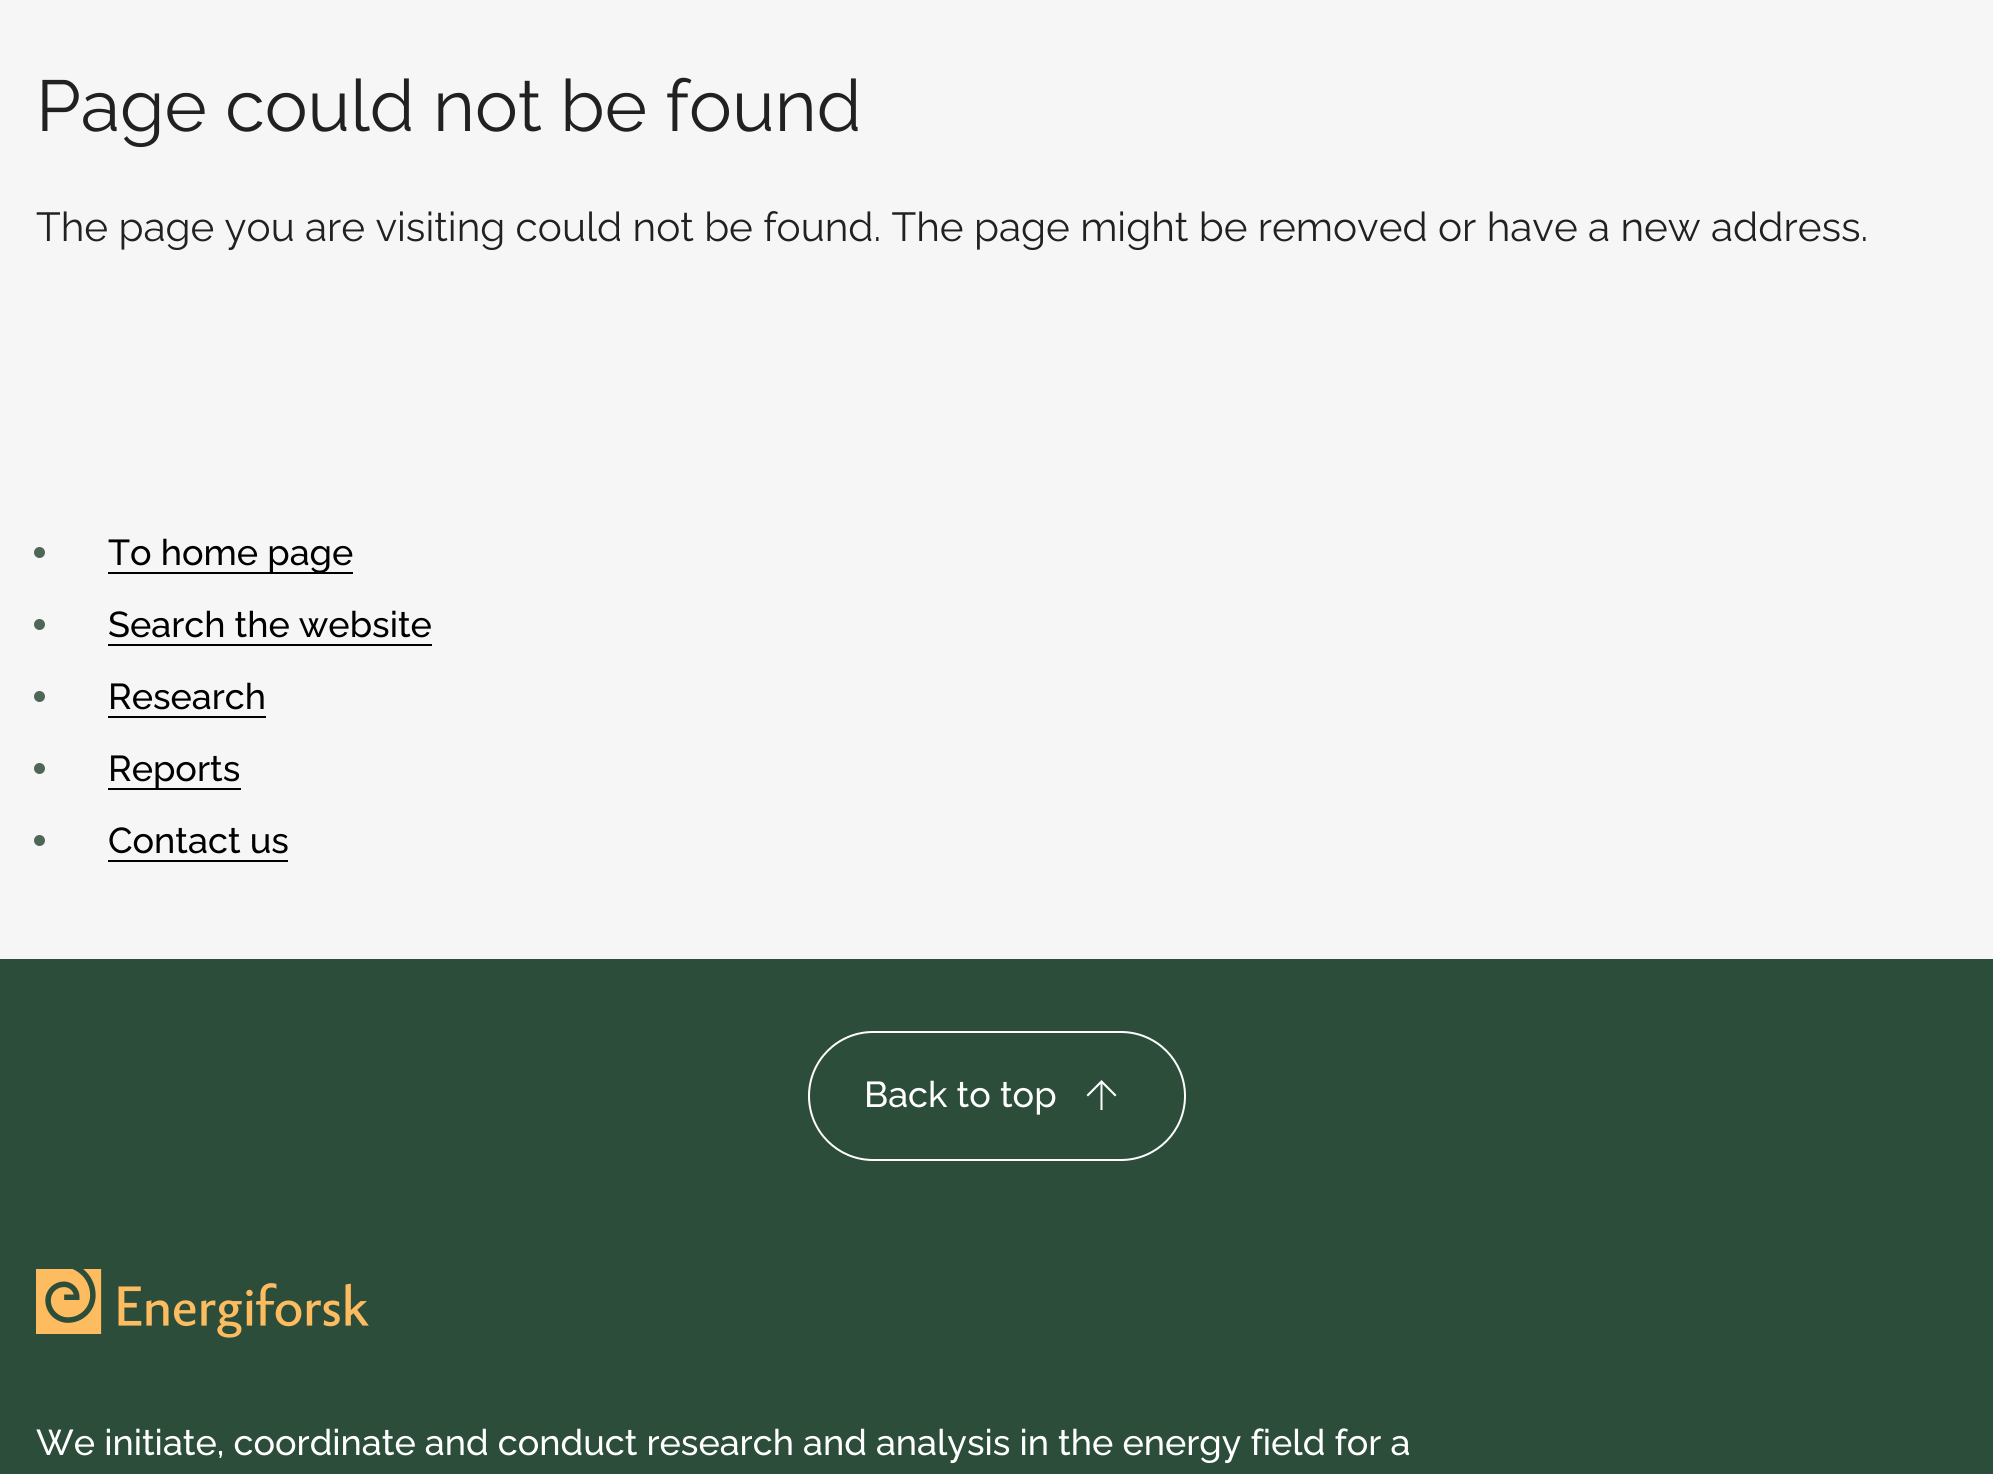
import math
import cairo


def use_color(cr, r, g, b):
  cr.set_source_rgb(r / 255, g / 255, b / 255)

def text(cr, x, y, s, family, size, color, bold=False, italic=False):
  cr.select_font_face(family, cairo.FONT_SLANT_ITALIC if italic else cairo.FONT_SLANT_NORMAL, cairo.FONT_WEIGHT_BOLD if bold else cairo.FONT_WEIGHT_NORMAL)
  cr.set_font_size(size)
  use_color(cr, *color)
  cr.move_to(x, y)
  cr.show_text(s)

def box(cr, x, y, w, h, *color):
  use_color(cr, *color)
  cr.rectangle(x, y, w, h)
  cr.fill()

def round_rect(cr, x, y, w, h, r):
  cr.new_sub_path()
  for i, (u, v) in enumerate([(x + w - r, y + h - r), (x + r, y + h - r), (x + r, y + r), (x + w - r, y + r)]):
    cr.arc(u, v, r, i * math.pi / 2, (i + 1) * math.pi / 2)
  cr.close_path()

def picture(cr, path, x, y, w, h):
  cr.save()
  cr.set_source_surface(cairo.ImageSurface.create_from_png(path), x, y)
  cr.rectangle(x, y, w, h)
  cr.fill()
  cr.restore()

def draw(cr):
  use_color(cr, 246, 246, 246)
  cr.paint()
  use_color(cr, 77, 103, 86)
  cr.arc(39.5, 552.5, 5.5, 0, 2 * math.pi)
  cr.fill()
  box(cr, 108, 572, 245, 2, 0, 0, 0)
  use_color(cr, 77, 103, 86)
  cr.arc(39.5, 624.5, 5.5, 0, 2 * math.pi)
  cr.fill()
  box(cr, 108, 644, 324, 2, 0, 0, 0)
  use_color(cr, 77, 103, 86)
  cr.arc(39.5, 696.5, 5.5, 0, 2 * math.pi)
  cr.fill()
  box(cr, 108, 716, 158, 2, 0, 0, 0)
  use_color(cr, 77, 103, 86)
  cr.arc(39.5, 768.5, 5.5, 0, 2 * math.pi)
  cr.fill()
  box(cr, 108, 788, 133, 2, 0, 0, 0)
  use_color(cr, 77, 103, 86)
  cr.arc(39.5, 840.5, 5.5, 0, 2 * math.pi)
  cr.fill()
  box(cr, 108, 860, 180, 2, 0, 0, 0)
  box(cr, 0, 959, 1993, 515, 44, 77, 58)
  round_rect(cr, 809, 1032, 376, 128, 64)
  use_color(cr, 255, 255, 255)
  cr.stroke()
  cr.new_path()
  cr.move_to(1102.5, 1084)
  cr.line_to(1102.5, 1110)
  cr.line_to(1100.5, 1110)
  cr.line_to(1100.5, 1084)
  cr.line_to(1088, 1096.5)
  cr.line_to(1086.5, 1095)
  cr.line_to(1101.5, 1080)
  cr.line_to(1116.5, 1095)
  cr.line_to(1115, 1096.5)
  cr.close_path()
  cr.fill()
  picture(cr, "img_01.png", 36, 1269, 333, 69)
  text(cr, 36, 131, "Page could not be found", "Raleway", 72, (33, 33, 33))
  text(cr, 36, 241, "The page you are visiting could not be found. The page might be removed or have a new address.", "Raleway", 40.5, (33, 33, 33))
  text(cr, 108, 565, "To home page", "Raleway Medium", 36, (0, 0, 0))
  text(cr, 108, 637, "Search the website", "Raleway Medium", 36, (0, 0, 0))
  text(cr, 108, 709, "Research", "Raleway Medium", 36, (0, 0, 0))
  text(cr, 108, 781, "Reports", "Raleway Medium", 36, (0, 0, 0))
  text(cr, 108, 853, "Contact us", "Raleway Medium", 36, (0, 0, 0))
  text(cr, 864, 1107, "Back to top", "Raleway Medium", 36, (255, 255, 255))
  text(cr, 36, 1455, "We initiate, coordinate and conduct research and analysis in the energy field for a", "Raleway Medium", 36, (255, 255, 255))


surface = cairo.ImageSurface(cairo.FORMAT_RGB24, 1993, 1474)
cr = cairo.Context(surface)
options = cairo.FontOptions()
options.set_hint_metrics(cairo.HINT_METRICS_OFF)
options.set_hint_style(cairo.HINT_STYLE_NONE)
cr.set_font_options(options)
cr.set_miter_limit(4)
draw(cr)
surface.write_to_png("out.png")
